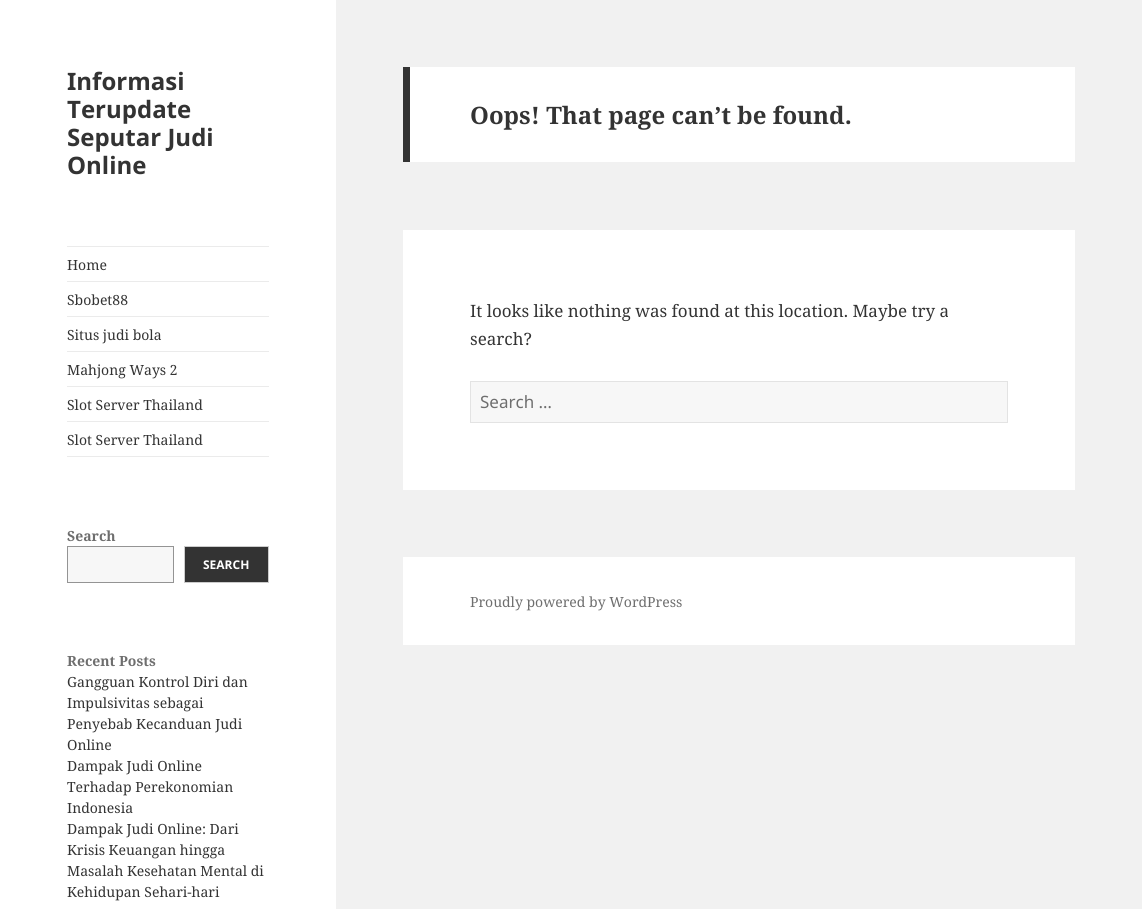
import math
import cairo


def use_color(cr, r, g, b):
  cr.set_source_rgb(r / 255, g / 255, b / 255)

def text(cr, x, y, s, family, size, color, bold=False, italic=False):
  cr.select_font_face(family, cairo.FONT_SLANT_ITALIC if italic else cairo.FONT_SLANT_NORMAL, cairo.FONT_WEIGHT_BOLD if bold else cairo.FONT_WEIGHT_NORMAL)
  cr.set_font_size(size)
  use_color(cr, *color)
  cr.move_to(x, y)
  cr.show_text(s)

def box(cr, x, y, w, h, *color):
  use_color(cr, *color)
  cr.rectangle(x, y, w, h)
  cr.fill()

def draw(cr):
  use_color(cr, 241, 241, 241)
  cr.paint()
  box(cr, 0, 0, 336, 909, 255, 255, 255)
  box(cr, 67, 246, 202, 1, 235, 235, 235)
  box(cr, 67, 456, 202, 1, 235, 235, 235)
  box(cr, 67, 281, 202, 1, 235, 235, 235)
  box(cr, 67, 316, 202, 1, 235, 235, 235)
  box(cr, 67, 351, 202, 1, 235, 235, 235)
  box(cr, 67, 386, 202, 1, 235, 235, 235)
  box(cr, 67, 421, 202, 1, 235, 235, 235)
  use_color(cr, 247, 247, 247)
  cr.rectangle(67.5, 546.5, 106, 36)
  cr.fill_preserve()
  use_color(cr, 148, 148, 148)
  cr.set_line_width(1)
  cr.stroke()
  use_color(cr, 51, 51, 51)
  cr.rectangle(184.5, 546.5, 84, 36)
  cr.fill_preserve()
  use_color(cr, 204, 204, 204)
  cr.stroke()
  box(cr, 410, 67, 665, 95, 255, 255, 255)
  box(cr, 403, 67, 7, 95, 51, 51, 51)
  box(cr, 403, 230, 672, 260, 255, 255, 255)
  use_color(cr, 247, 247, 247)
  cr.rectangle(470.5, 381.5, 537, 41)
  cr.fill_preserve()
  use_color(cr, 227, 227, 227)
  cr.stroke()
  box(cr, 403, 557, 672, 88, 255, 255, 255)
  text(cr, 67, 90, "Informasi", "Noto Sans", 24, (51, 51, 51), bold=True)
  text(cr, 67, 118, "Terupdate", "Noto Sans", 24, (51, 51, 51), bold=True)
  text(cr, 67, 146, "Seputar Judi", "Noto Sans", 24, (51, 51, 51), bold=True)
  text(cr, 67, 174, "Online", "Noto Sans", 24, (51, 51, 51), bold=True)
  text(cr, 67, 270, "Home", "Noto Serif", 14, (51, 51, 51))
  text(cr, 67, 305, "Sbobet88", "Noto Serif", 14, (51, 51, 51))
  text(cr, 67, 340, "Situs judi bola", "Noto Serif", 14, (51, 51, 51))
  text(cr, 67, 375, "Mahjong Ways 2", "Noto Serif", 14, (51, 51, 51))
  text(cr, 67, 410, "Slot Server Thailand", "Noto Serif", 14, (51, 51, 51))
  text(cr, 67, 445, "Slot Server Thailand", "Noto Serif", 14, (51, 51, 51))
  text(cr, 67, 541, "Search", "Noto Serif", 14, (110, 110, 110), bold=True)
  text(cr, 203, 569, "SEARCH", "Noto Sans", 12, (255, 255, 255), bold=True)
  text(cr, 67, 666, "Recent Posts", "Noto Serif", 14, (110, 110, 110), bold=True)
  text(cr, 67, 687, "Gangguan Kontrol Diri dan", "Noto Serif", 14, (51, 51, 51))
  text(cr, 67, 708, "Impulsivitas sebagai", "Noto Serif", 14, (51, 51, 51))
  text(cr, 67, 729, "Penyebab Kecanduan Judi", "Noto Serif", 14, (51, 51, 51))
  text(cr, 67, 750, "Online", "Noto Serif", 14, (51, 51, 51))
  text(cr, 67, 771, "Dampak Judi Online", "Noto Serif", 14, (51, 51, 51))
  text(cr, 67, 792, "Terhadap Perekonomian", "Noto Serif", 14, (51, 51, 51))
  text(cr, 67, 813, "Indonesia", "Noto Serif", 14, (51, 51, 51))
  text(cr, 67, 834, "Dampak Judi Online: Dari", "Noto Serif", 14, (51, 51, 51))
  text(cr, 67, 855, "Krisis Keuangan hingga", "Noto Serif", 14, (51, 51, 51))
  text(cr, 67, 876, "Masalah Kesehatan Mental di", "Noto Serif", 14, (51, 51, 51))
  text(cr, 67, 897, "Kehidupan Sehari-hari", "Noto Serif", 14, (51, 51, 51))
  text(cr, 470, 124, "Oops! That page can’t be found.", "Noto Serif", 24, (51, 51, 51), bold=True)
  text(cr, 470, 317, "It looks like nothing was found at this location. Maybe try a", "Noto Serif", 17, (51, 51, 51))
  text(cr, 470, 345, "search?", "Noto Serif", 17, (51, 51, 51))
  text(cr, 480, 408, "Search …", "Noto Sans", 17, (110, 110, 110))
  text(cr, 470, 607, "Proudly powered by WordPress", "Noto Serif", 14, (110, 110, 110))


surface = cairo.ImageSurface(cairo.FORMAT_RGB24, 1142, 909)
cr = cairo.Context(surface)
options = cairo.FontOptions()
options.set_hint_metrics(cairo.HINT_METRICS_OFF)
options.set_hint_style(cairo.HINT_STYLE_NONE)
cr.set_font_options(options)
cr.set_miter_limit(4)
draw(cr)
surface.write_to_png("out.png")
